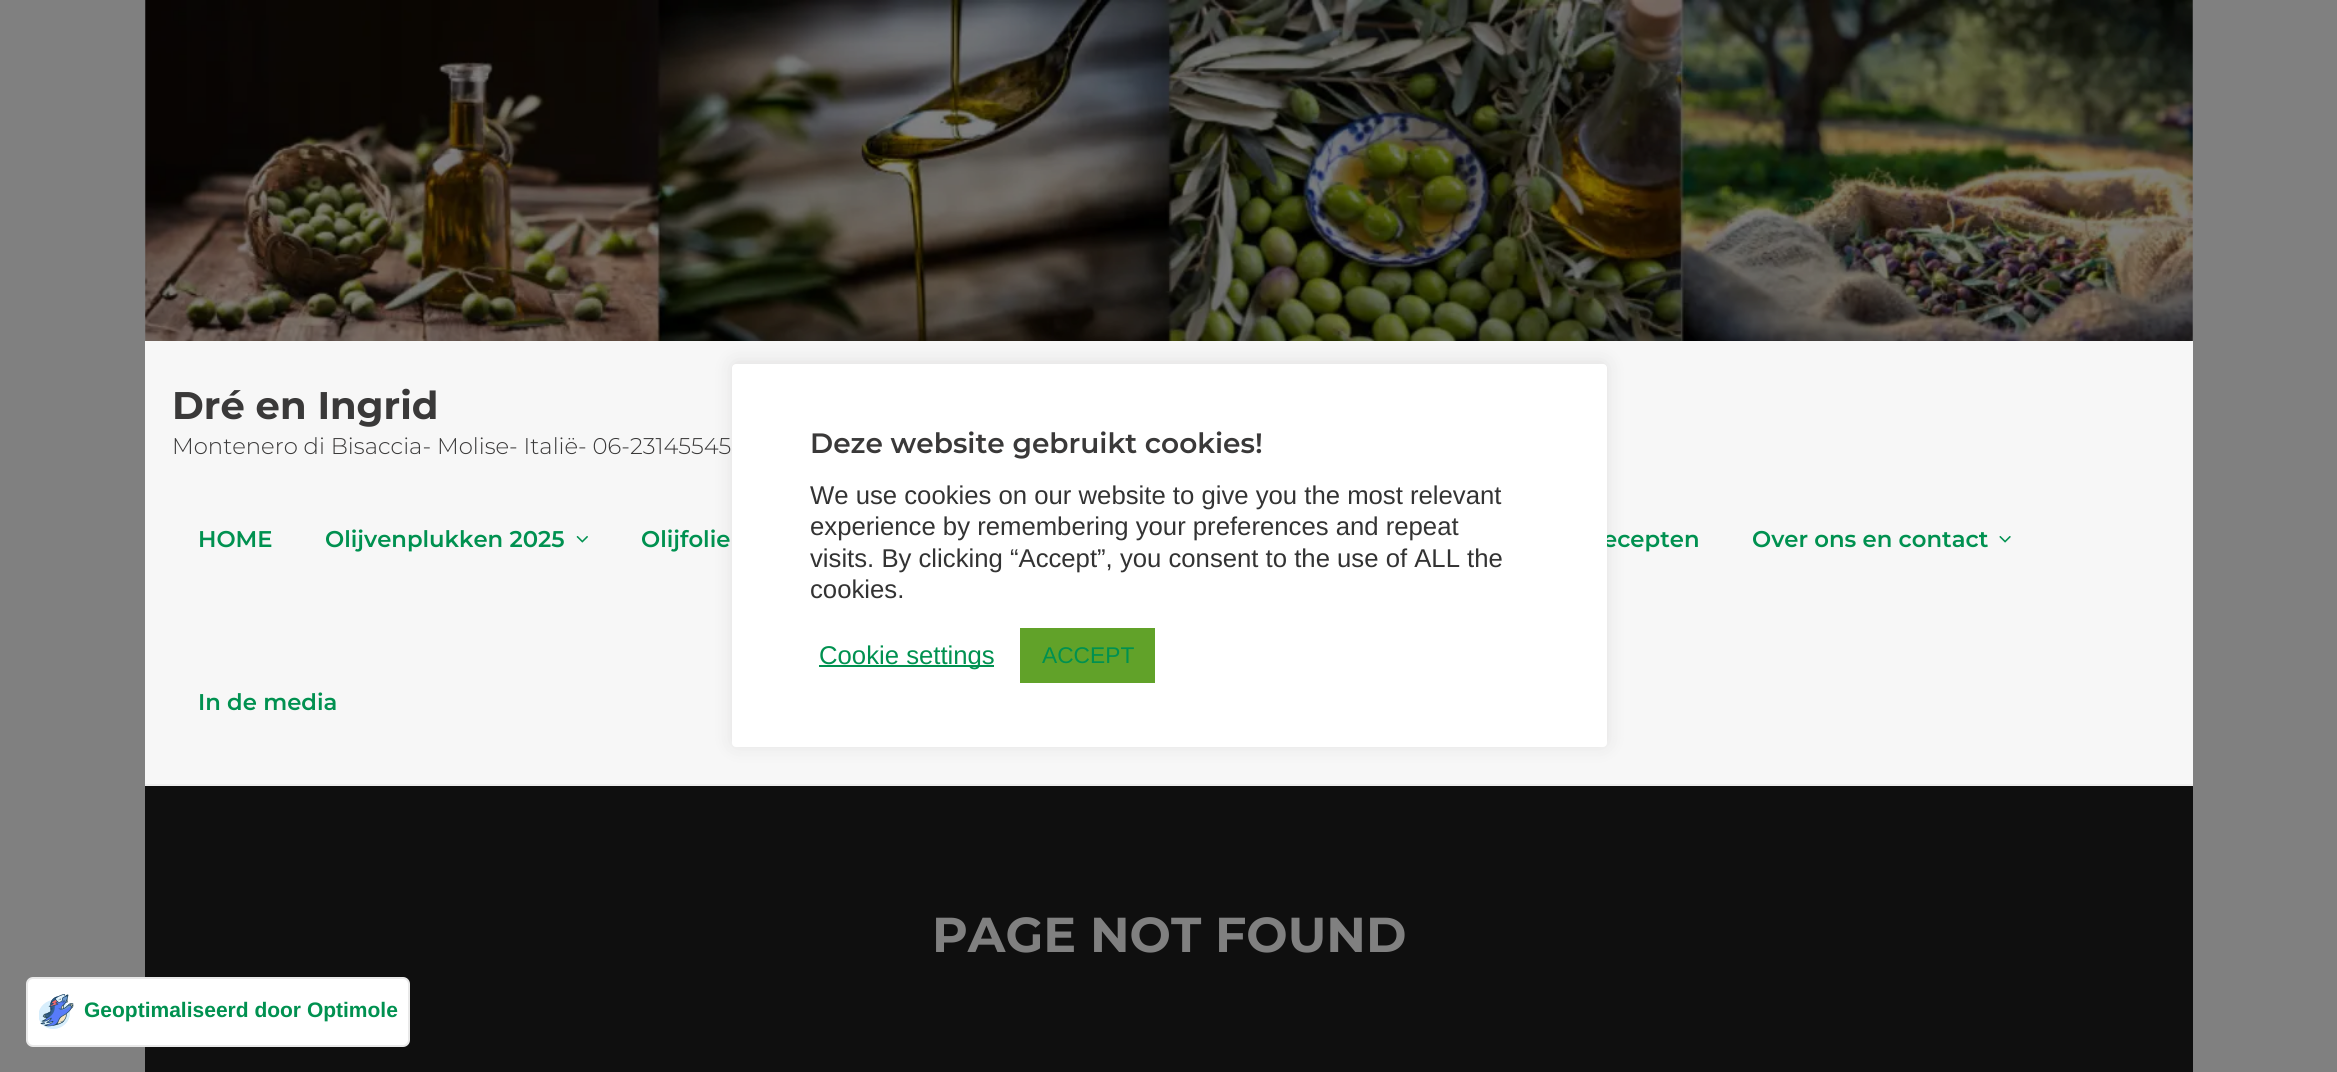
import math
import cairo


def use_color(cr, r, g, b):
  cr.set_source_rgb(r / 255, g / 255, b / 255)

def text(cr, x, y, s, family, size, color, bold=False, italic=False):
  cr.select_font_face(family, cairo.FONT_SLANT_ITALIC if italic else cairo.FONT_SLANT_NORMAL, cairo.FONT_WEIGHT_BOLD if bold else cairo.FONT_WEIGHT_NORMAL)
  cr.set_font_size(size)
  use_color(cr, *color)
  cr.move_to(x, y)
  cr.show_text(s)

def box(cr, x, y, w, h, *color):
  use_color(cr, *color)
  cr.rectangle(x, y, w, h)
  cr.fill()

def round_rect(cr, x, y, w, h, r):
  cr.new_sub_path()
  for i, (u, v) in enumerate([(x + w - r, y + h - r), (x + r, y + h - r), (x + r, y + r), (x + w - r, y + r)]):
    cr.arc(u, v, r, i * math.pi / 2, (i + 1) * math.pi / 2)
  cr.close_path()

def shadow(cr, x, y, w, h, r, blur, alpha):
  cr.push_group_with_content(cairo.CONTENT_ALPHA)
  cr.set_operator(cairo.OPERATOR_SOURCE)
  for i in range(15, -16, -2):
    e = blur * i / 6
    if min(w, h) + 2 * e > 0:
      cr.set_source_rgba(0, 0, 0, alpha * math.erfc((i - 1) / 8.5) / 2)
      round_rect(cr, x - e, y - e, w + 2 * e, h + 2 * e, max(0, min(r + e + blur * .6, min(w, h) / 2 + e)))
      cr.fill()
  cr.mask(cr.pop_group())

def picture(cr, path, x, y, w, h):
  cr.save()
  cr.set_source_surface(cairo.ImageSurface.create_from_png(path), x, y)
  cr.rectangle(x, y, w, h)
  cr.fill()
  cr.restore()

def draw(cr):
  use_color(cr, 128, 128, 128)
  cr.paint()
  picture(cr, "img_01.png", 145, 0, 2048, 341)
  box(cr, 145, 341, 2048, 443, 247, 247, 247)
  box(cr, 145, 784, 2048, 2, 238, 238, 238)
  picture(cr, "img_02.png", 576, 536, 12, 7)
  picture(cr, "img_03.png", 1999, 536, 12, 7)
  box(cr, 145, 786, 2048, 286, 15, 15, 15)
  use_color(cr, 172, 171, 171)
  shadow(cr, 732, 362, 875, 384, 4, 9, 0.3)
  use_color(cr, 255, 255, 255)
  round_rect(cr, 27, 978, 382, 68, 6)
  cr.fill_preserve()
  use_color(cr, 233, 233, 233)
  cr.stroke()
  picture(cr, "img_04.png", 39, 994, 35, 35)
  text(cr, 172, 419, "Dré en Ingrid", "Montserrat", 38.5, (58, 57, 57), bold=True)
  text(cr, 172, 454, "Montenero di Bisaccia- Molise- Italië- 06-23145545", "Montserrat Light", 22.75, (58, 57, 57))
  text(cr, 198, 547, "HOME", "Montserrat SemiBold", 22.75, (0, 145, 80))
  text(cr, 325, 547, "Olijvenplukken 2025", "Montserrat SemiBold", 22.75, (0, 145, 80))
  text(cr, 641, 547, "Olijfolie", "Montserrat SemiBold", 22.75, (0, 145, 80))
  text(cr, 1603, 547, "ecepten", "Montserrat SemiBold", 22.75, (0, 145, 80))
  text(cr, 1752, 547, "Over ons en contact", "Montserrat SemiBold", 22.75, (0, 145, 80))
  text(cr, 198, 710, "In de media", "Montserrat SemiBold", 22.75, (0, 145, 80))
  text(cr, 932, 952, "PAGE NOT FOUND", "Montserrat", 49, (128, 128, 128), bold=True)
  use_color(cr, 255, 255, 255)
  round_rect(cr, 732, 364, 875, 383, 4)
  cr.fill()
  text(cr, 810, 453, "Deze website gebruikt cookies!", "Montserrat SemiBold", 28, (58, 57, 57))
  text(cr, 810, 504, "We use cookies on our website to give you the most relevant", "Liberation Sans", 25.7, (51, 51, 51))
  text(cr, 810, 535, "experience by remembering your preferences and repeat", "Liberation Sans", 25.7, (51, 51, 51))
  text(cr, 810, 567, "visits. By clicking “Accept”, you consent to the use of ALL the", "Liberation Sans", 25.7, (51, 51, 51))
  text(cr, 810, 598, "cookies.", "Liberation Sans", 25.7, (51, 51, 51))
  box(cr, 819, 665, 175, 2, 0, 145, 80)
  text(cr, 819, 664, "Cookie settings", "Liberation Sans", 25.7, (0, 145, 80))
  box(cr, 1020, 628, 135, 55, 97, 162, 41)
  text(cr, 1042, 663, "ACCEPT", "Liberation Sans", 22.75, (0, 145, 80))
  text(cr, 84, 1017, "Geoptimaliseerd door Optimole", "Liberation Sans", 21, (0, 145, 80), bold=True)


surface = cairo.ImageSurface(cairo.FORMAT_RGB24, 2337, 1072)
cr = cairo.Context(surface)
options = cairo.FontOptions()
options.set_hint_metrics(cairo.HINT_METRICS_OFF)
options.set_hint_style(cairo.HINT_STYLE_NONE)
cr.set_font_options(options)
cr.set_miter_limit(4)
draw(cr)
surface.write_to_png("out.png")
